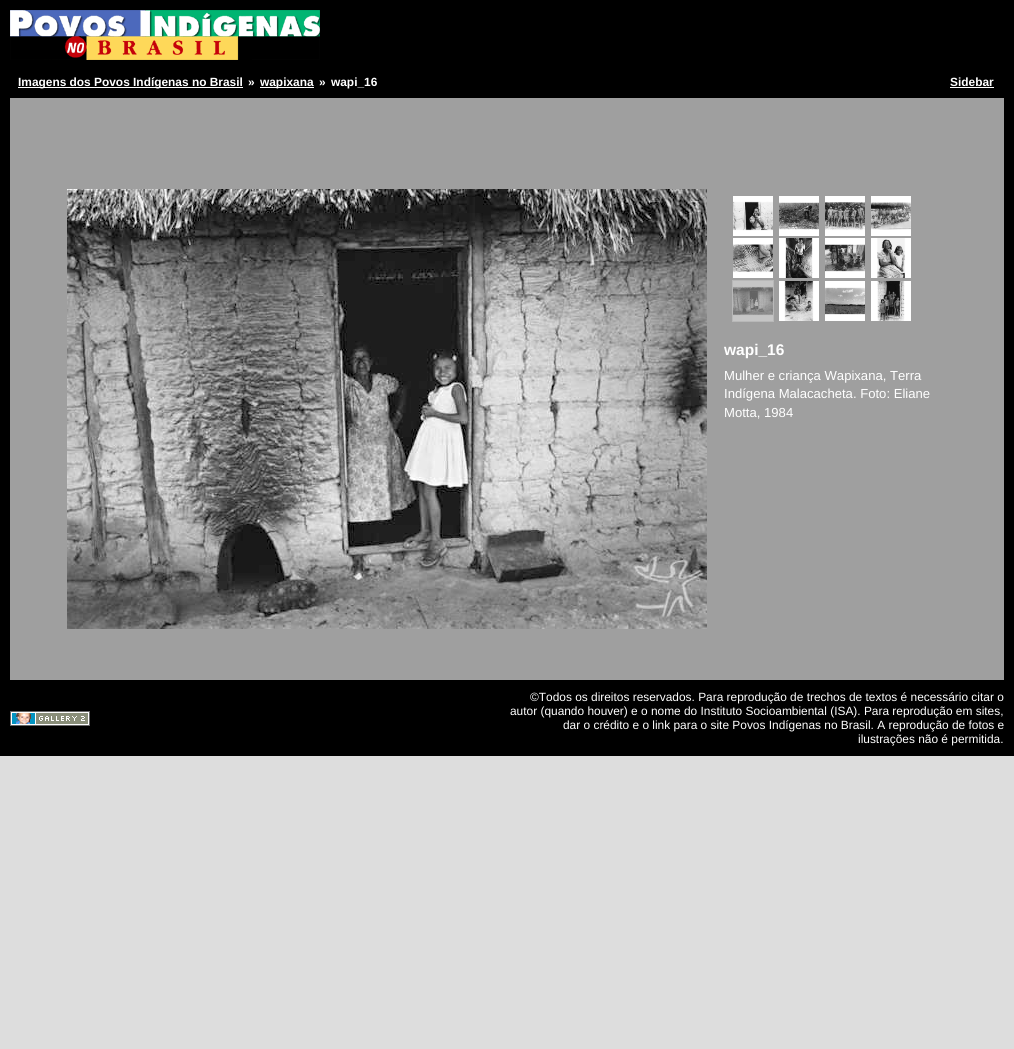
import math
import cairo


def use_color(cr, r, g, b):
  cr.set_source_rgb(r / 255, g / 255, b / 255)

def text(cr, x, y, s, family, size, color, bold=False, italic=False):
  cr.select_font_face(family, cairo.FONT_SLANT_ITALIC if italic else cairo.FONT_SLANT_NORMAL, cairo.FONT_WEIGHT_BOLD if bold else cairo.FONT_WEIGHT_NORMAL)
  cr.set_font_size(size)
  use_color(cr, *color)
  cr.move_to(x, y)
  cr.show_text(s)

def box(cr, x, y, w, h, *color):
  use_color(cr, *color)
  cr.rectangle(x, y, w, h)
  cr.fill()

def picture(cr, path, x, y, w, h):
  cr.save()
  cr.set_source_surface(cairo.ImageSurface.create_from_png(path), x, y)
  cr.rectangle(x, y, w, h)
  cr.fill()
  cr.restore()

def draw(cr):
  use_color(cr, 221, 221, 221)
  cr.paint()
  box(cr, 0, 0, 1014, 756, 0, 0, 0)
  picture(cr, "img_01.png", 10, 10, 310, 50)
  box(cr, 18, 87, 225, 1, 255, 255, 255)
  box(cr, 260, 87, 54, 1, 255, 255, 255)
  box(cr, 950, 87, 44, 1, 255, 255, 255)
  box(cr, 10, 98, 994, 582, 159, 159, 159)
  picture(cr, "img_02.png", 67, 189, 640, 440)
  picture(cr, "img_03.png", 733, 196, 40, 40)
  picture(cr, "img_04.png", 779, 196, 40, 40)
  picture(cr, "img_05.png", 825, 196, 40, 40)
  picture(cr, "img_06.png", 871, 196, 40, 40)
  picture(cr, "img_07.png", 733, 238, 40, 40)
  picture(cr, "img_08.png", 779, 238, 40, 40)
  picture(cr, "img_09.png", 825, 238, 40, 40)
  picture(cr, "img_10.png", 871, 238, 40, 40)
  cr.rectangle(732.5, 280.5, 41, 41)
  use_color(cr, 184, 184, 184)
  cr.set_line_width(1)
  cr.stroke()
  picture(cr, "img_11.png", 733, 281, 40, 40)
  picture(cr, "img_12.png", 779, 281, 40, 40)
  picture(cr, "img_13.png", 825, 281, 40, 40)
  picture(cr, "img_14.png", 871, 281, 40, 40)
  picture(cr, "img_15.png", 10, 711, 80, 15)
  text(cr, 18, 86, "Imagens dos Povos Indígenas no Brasil", "Liberation Sans", 11.9, (255, 255, 255), bold=True)
  text(cr, 248, 86, "»", "Liberation Sans", 11.9, (255, 255, 255), bold=True)
  text(cr, 260, 86, "wapixana", "Liberation Sans", 11.9, (255, 255, 255), bold=True)
  text(cr, 319, 86, "»", "Liberation Sans", 11.9, (255, 255, 255), bold=True)
  text(cr, 331, 86, "wapi_16", "Liberation Sans", 11.9, (255, 255, 255), bold=True)
  text(cr, 950, 86, "Sidebar", "Liberation Sans", 11.9, (255, 255, 255), bold=True)
  text(cr, 724, 355, "wapi_16", "Liberation Sans", 15.5, (255, 255, 255), bold=True)
  text(cr, 724, 380, "Mulher e criança Wapixana, Terra", "Liberation Sans", 13.1, (255, 255, 255))
  text(cr, 724, 398, "Indígena Malacacheta. Foto: Eliane", "Liberation Sans", 13.1, (255, 255, 255))
  text(cr, 724, 417, "Motta, 1984", "Liberation Sans", 13.1, (255, 255, 255))
  text(cr, 530, 701, "©Todos os direitos reservados. Para reprodução de trechos de textos é necessário citar o", "Liberation Sans", 11.9, (255, 255, 255))
  text(cr, 510, 715, "autor (quando houver) e o nome do Instituto Socioambiental (ISA). Para reprodução em sites,", "Liberation Sans", 11.9, (255, 255, 255))
  text(cr, 563, 729, "dar o crédito e o link para o site Povos Indígenas no Brasil. A reprodução de fotos e", "Liberation Sans", 11.9, (255, 255, 255))
  text(cr, 858, 743, "ilustrações não é permitida.", "Liberation Sans", 11.9, (255, 255, 255))


surface = cairo.ImageSurface(cairo.FORMAT_RGB24, 1014, 1049)
cr = cairo.Context(surface)
options = cairo.FontOptions()
options.set_hint_metrics(cairo.HINT_METRICS_OFF)
options.set_hint_style(cairo.HINT_STYLE_NONE)
cr.set_font_options(options)
cr.set_miter_limit(4)
draw(cr)
surface.write_to_png("out.png")
